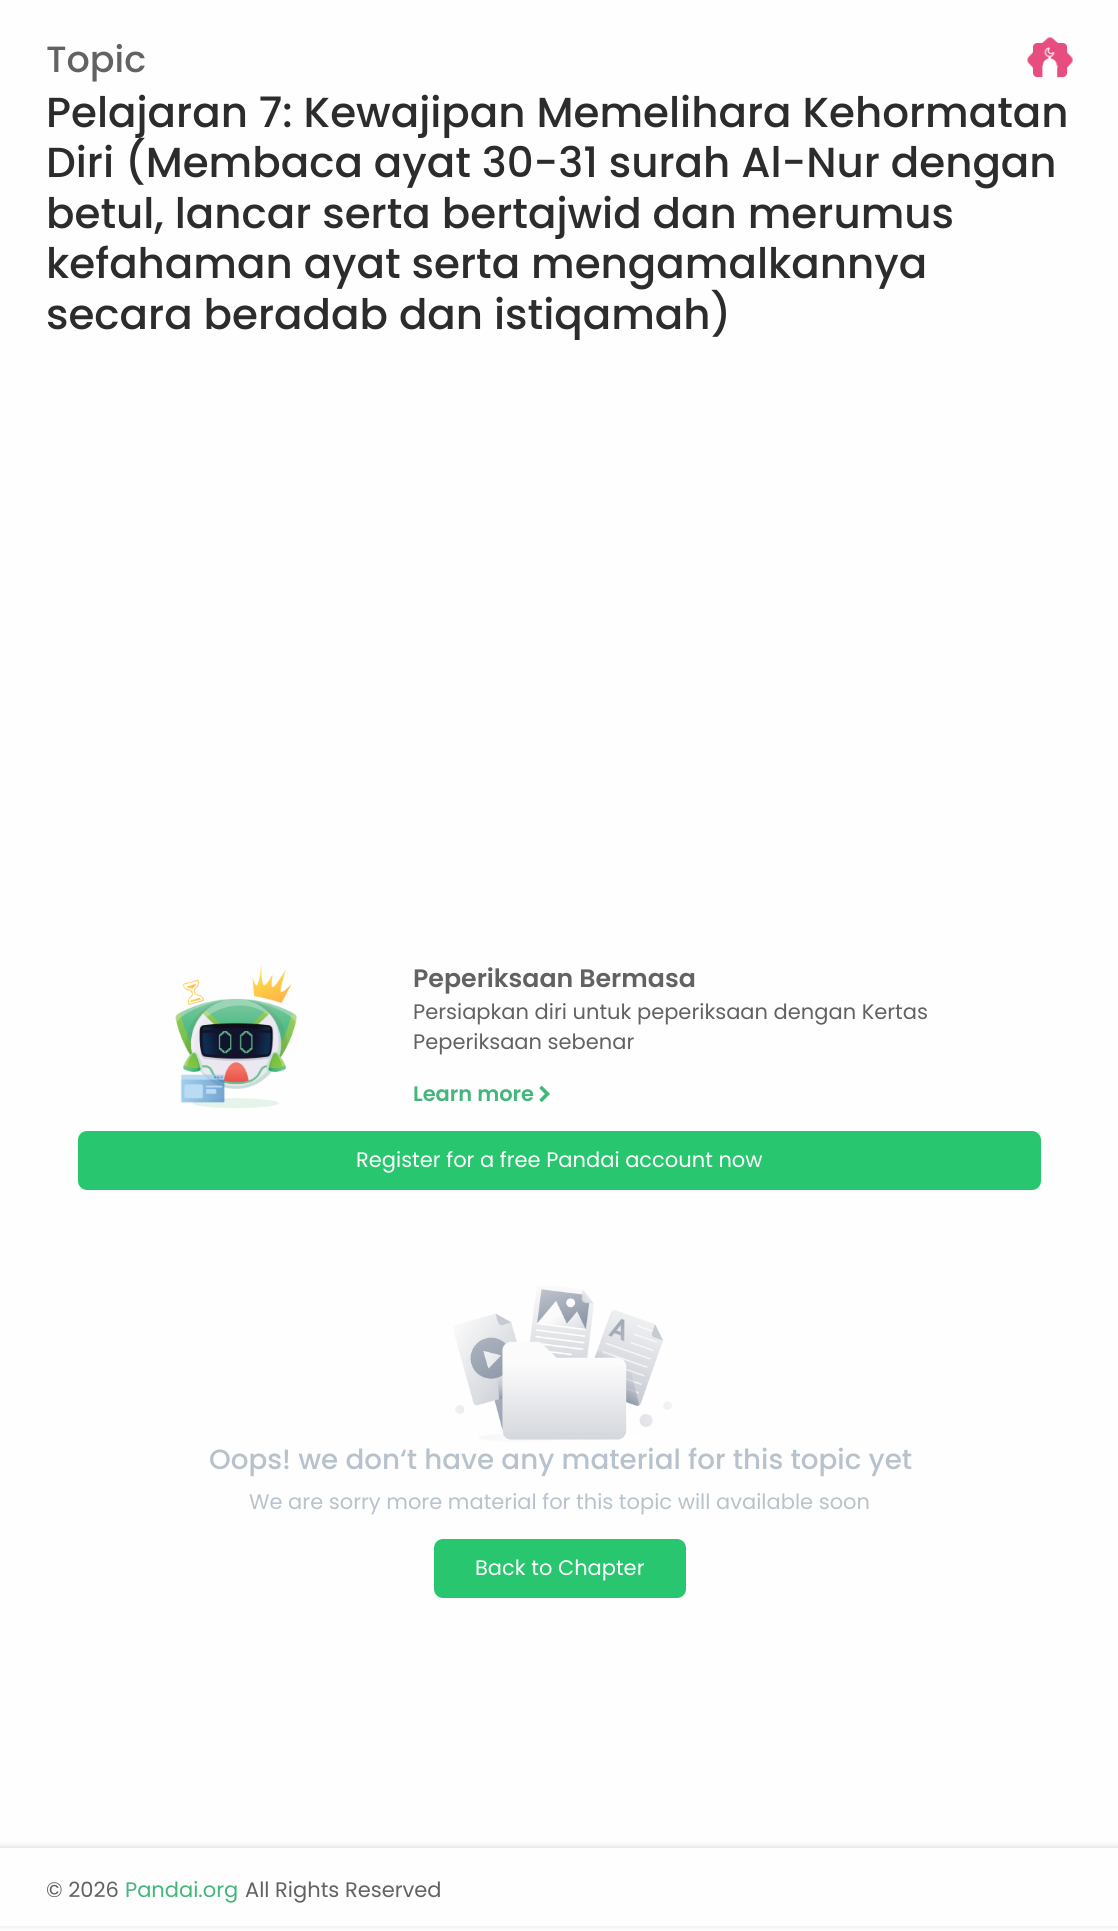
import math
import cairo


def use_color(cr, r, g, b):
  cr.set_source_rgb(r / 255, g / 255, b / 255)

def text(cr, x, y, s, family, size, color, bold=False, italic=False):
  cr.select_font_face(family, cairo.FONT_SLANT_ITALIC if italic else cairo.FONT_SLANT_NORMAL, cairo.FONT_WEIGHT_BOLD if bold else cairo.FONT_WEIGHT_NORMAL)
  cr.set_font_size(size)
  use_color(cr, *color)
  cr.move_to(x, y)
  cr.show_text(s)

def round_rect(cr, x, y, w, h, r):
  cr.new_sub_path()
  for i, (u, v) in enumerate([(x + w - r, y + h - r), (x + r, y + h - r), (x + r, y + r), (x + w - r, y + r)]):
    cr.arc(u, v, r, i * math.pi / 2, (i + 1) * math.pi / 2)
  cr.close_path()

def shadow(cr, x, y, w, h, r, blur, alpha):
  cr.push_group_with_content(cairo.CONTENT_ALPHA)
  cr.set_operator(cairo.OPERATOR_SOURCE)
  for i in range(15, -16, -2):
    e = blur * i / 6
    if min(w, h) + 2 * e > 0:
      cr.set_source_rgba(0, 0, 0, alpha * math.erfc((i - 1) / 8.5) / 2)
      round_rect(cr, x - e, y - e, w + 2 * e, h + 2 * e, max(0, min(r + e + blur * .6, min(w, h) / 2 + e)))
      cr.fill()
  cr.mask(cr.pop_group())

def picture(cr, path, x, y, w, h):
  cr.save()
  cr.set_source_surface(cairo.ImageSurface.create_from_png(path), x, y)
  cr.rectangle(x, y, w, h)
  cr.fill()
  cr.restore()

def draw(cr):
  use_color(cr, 254, 254, 254)
  cr.paint()
  picture(cr, "img_01.png", 1027, 37, 46, 46)
  picture(cr, "img_02.png", 175, 964, 122, 145)
  picture(cr, "img_03.png", 539, 1085, 11, 17)
  use_color(cr, 40, 199, 111)
  round_rect(cr, 78, 1131, 963, 59, 9)
  cr.fill()
  picture(cr, "img_04.png", 453, 1286, 219, 156)
  round_rect(cr, 434, 1539, 252, 59, 9)
  cr.fill()
  cr.save()
  cr.set_fill_rule(cairo.FILL_RULE_EVEN_ODD)
  cr.new_path()
  cr.move_to(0, 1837)
  cr.line_to(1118, 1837)
  cr.line_to(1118, 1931)
  cr.line_to(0, 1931)
  cr.close_path()
  cr.move_to(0, 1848)
  cr.line_to(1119, 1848)
  cr.line_to(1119, 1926)
  cr.line_to(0, 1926)
  cr.close_path()
  cr.clip()
  use_color(cr, 0, 0, 0)
  shadow(cr, 0, 1847, 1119, 78, 0, 3, 0.15)
  cr.restore()
  text(cr, 46, 72, "Topic", "Poppins Medium", 36.5, (98, 98, 98))
  text(cr, 46, 127, "Pelajaran 7: Kewajipan Memelihara Kehormatan", "Poppins Medium", 42, (44, 44, 44))
  text(cr, 46, 177, "Diri (Membaca ayat 30-31 surah Al-Nur dengan", "Poppins Medium", 42, (44, 44, 44))
  text(cr, 46, 228, "betul, lancar serta bertajwid dan merumus", "Poppins Medium", 42, (44, 44, 44))
  text(cr, 46, 278, "kefahaman ayat serta mengamalkannya", "Poppins Medium", 42, (44, 44, 44))
  text(cr, 46, 329, "secara beradab dan istiqamah)", "Poppins Medium", 42, (44, 44, 44))
  text(cr, 413, 987, "Peperiksaan Bermasa", "Poppins SemiBold", 25.25, (98, 98, 98))
  text(cr, 413, 1019, "Persiapkan diri untuk peperiksaan dengan Kertas", "Poppins", 21, (98, 98, 98))
  text(cr, 413, 1049, "Peperiksaan sebenar", "Poppins", 21, (98, 98, 98))
  text(cr, 413, 1101, "Learn more", "Poppins SemiBold", 21, (67, 182, 123))
  text(cr, 356, 1167, "Register for a free Pandai account now", "Poppins", 21, (255, 255, 255))
  text(cr, 209, 1469, "Oops! we don‘t have any material for this topic yet", "Poppins Medium", 27.75, (184, 194, 204))
  text(cr, 249, 1509, "We are sorry more material for this topic will available soon", "Poppins", 21, (184, 194, 204))
  text(cr, 475, 1575, "Back to Chapter", "Poppins", 21, (255, 255, 255))
  text(cr, 46, 1897, "© 2026", "Poppins", 21, (98, 98, 98))
  text(cr, 125, 1897, "Pandai.org", "Poppins", 21, (67, 182, 123))
  text(cr, 245, 1897, "All Rights Reserved", "Poppins", 21, (98, 98, 98))


surface = cairo.ImageSurface(cairo.FORMAT_RGB24, 1118, 1931)
cr = cairo.Context(surface)
options = cairo.FontOptions()
options.set_hint_metrics(cairo.HINT_METRICS_OFF)
options.set_hint_style(cairo.HINT_STYLE_NONE)
cr.set_font_options(options)
cr.set_miter_limit(4)
draw(cr)
surface.write_to_png("out.png")
